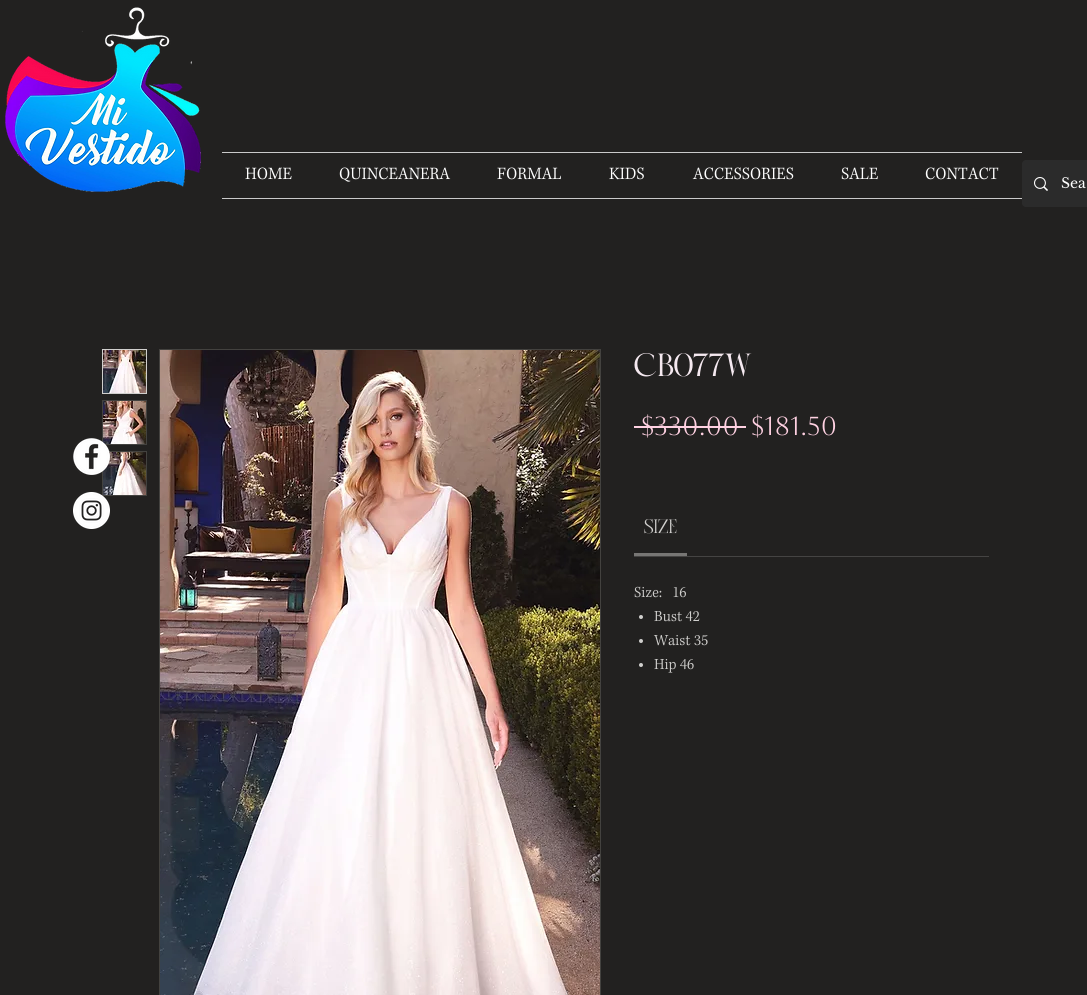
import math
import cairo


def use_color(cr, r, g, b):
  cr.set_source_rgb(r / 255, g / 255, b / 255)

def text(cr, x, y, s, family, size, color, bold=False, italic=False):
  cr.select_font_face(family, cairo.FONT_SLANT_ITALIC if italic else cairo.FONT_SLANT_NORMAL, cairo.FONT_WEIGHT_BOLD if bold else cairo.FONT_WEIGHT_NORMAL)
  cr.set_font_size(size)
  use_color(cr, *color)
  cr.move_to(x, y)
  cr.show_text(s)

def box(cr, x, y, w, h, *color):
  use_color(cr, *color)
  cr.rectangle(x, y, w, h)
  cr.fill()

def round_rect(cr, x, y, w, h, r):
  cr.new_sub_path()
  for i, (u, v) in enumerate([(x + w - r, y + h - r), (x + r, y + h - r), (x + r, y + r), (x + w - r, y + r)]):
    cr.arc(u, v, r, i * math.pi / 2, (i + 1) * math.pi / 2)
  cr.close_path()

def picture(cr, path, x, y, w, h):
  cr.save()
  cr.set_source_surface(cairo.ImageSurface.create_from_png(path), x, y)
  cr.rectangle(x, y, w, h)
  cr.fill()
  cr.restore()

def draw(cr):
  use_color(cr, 34, 33, 32)
  cr.paint()
  picture(cr, "img_01.png", 5, 7, 196, 185)
  box(cr, 222, 152, 800, 1, 202, 202, 202)
  box(cr, 222, 198, 800, 1, 202, 202, 202)
  picture(cr, "img_02.png", 245, 167, 47, 13)
  picture(cr, "img_03.png", 339, 167, 112, 15)
  picture(cr, "img_04.png", 497, 167, 64, 13)
  picture(cr, "img_05.png", 609, 167, 35, 13)
  picture(cr, "img_06.png", 692, 167, 102, 13)
  picture(cr, "img_07.png", 841, 167, 37, 13)
  picture(cr, "img_08.png", 925, 167, 74, 13)
  use_color(cr, 43, 43, 43)
  round_rect(cr, 1022, 160, 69, 47, 4)
  cr.fill()
  picture(cr, "img_09.png", 1034, 177, 14, 14)
  box(cr, 102, 400, 45, 45, 67, 66, 63)
  picture(cr, "img_13.png", 103, 401, 43, 43)
  box(cr, 102, 451, 45, 45, 67, 66, 63)
  picture(cr, "img_14.png", 103, 452, 43, 43)
  picture(cr, "img_10.png", 73, 438, 37, 37)
  picture(cr, "img_11.png", 73, 492, 37, 37)
  cr.rectangle(102.5, 349.5, 44, 44)
  use_color(cr, 208, 207, 205)
  cr.set_line_width(1)
  cr.stroke()
  picture(cr, "img_12.png", 103, 350, 43, 43)
  cr.rectangle(159.5, 349.5, 441, 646)
  use_color(cr, 67, 66, 63)
  cr.stroke()
  picture(cr, "img_15.png", 160, 350, 440, 645)
  box(cr, 634, 426, 112, 2, 255, 209, 226)
  box(cr, 634, 556, 355, 1, 69, 68, 67)
  box(cr, 634, 553, 53, 3, 119, 118, 116)
  picture(cr, "img_16.png", 634, 586, 52, 12)
  use_color(cr, 208, 207, 205)
  cr.arc(641, 617, 2, 0, 2 * math.pi)
  cr.fill()
  picture(cr, "img_17.png", 654, 611, 46, 11)
  cr.arc(641, 641, 2, 0, 2 * math.pi)
  cr.fill()
  picture(cr, "img_18.png", 653, 635, 55, 11)
  cr.arc(641, 665, 2, 0, 2 * math.pi)
  cr.fill()
  picture(cr, "img_19.png", 654, 659, 40, 14)
  text(cr, 1061, 188, "Sea", "Libre Baskerville", 14, (255, 255, 255))
  text(cr, 634, 376, "CB077W", "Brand", 32, (245, 233, 240))
  text(cr, 641, 435, "$330.00", "Aboreto", 26, (255, 209, 226))
  text(cr, 751, 435, "$181.50", "Aboreto", 26, (255, 209, 226))
  text(cr, 644, 533, "SIZE", "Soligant", 20, (208, 207, 205))


surface = cairo.ImageSurface(cairo.FORMAT_RGB24, 1087, 995)
cr = cairo.Context(surface)
options = cairo.FontOptions()
options.set_hint_metrics(cairo.HINT_METRICS_OFF)
options.set_hint_style(cairo.HINT_STYLE_NONE)
cr.set_font_options(options)
cr.set_miter_limit(4)
draw(cr)
surface.write_to_png("out.png")
